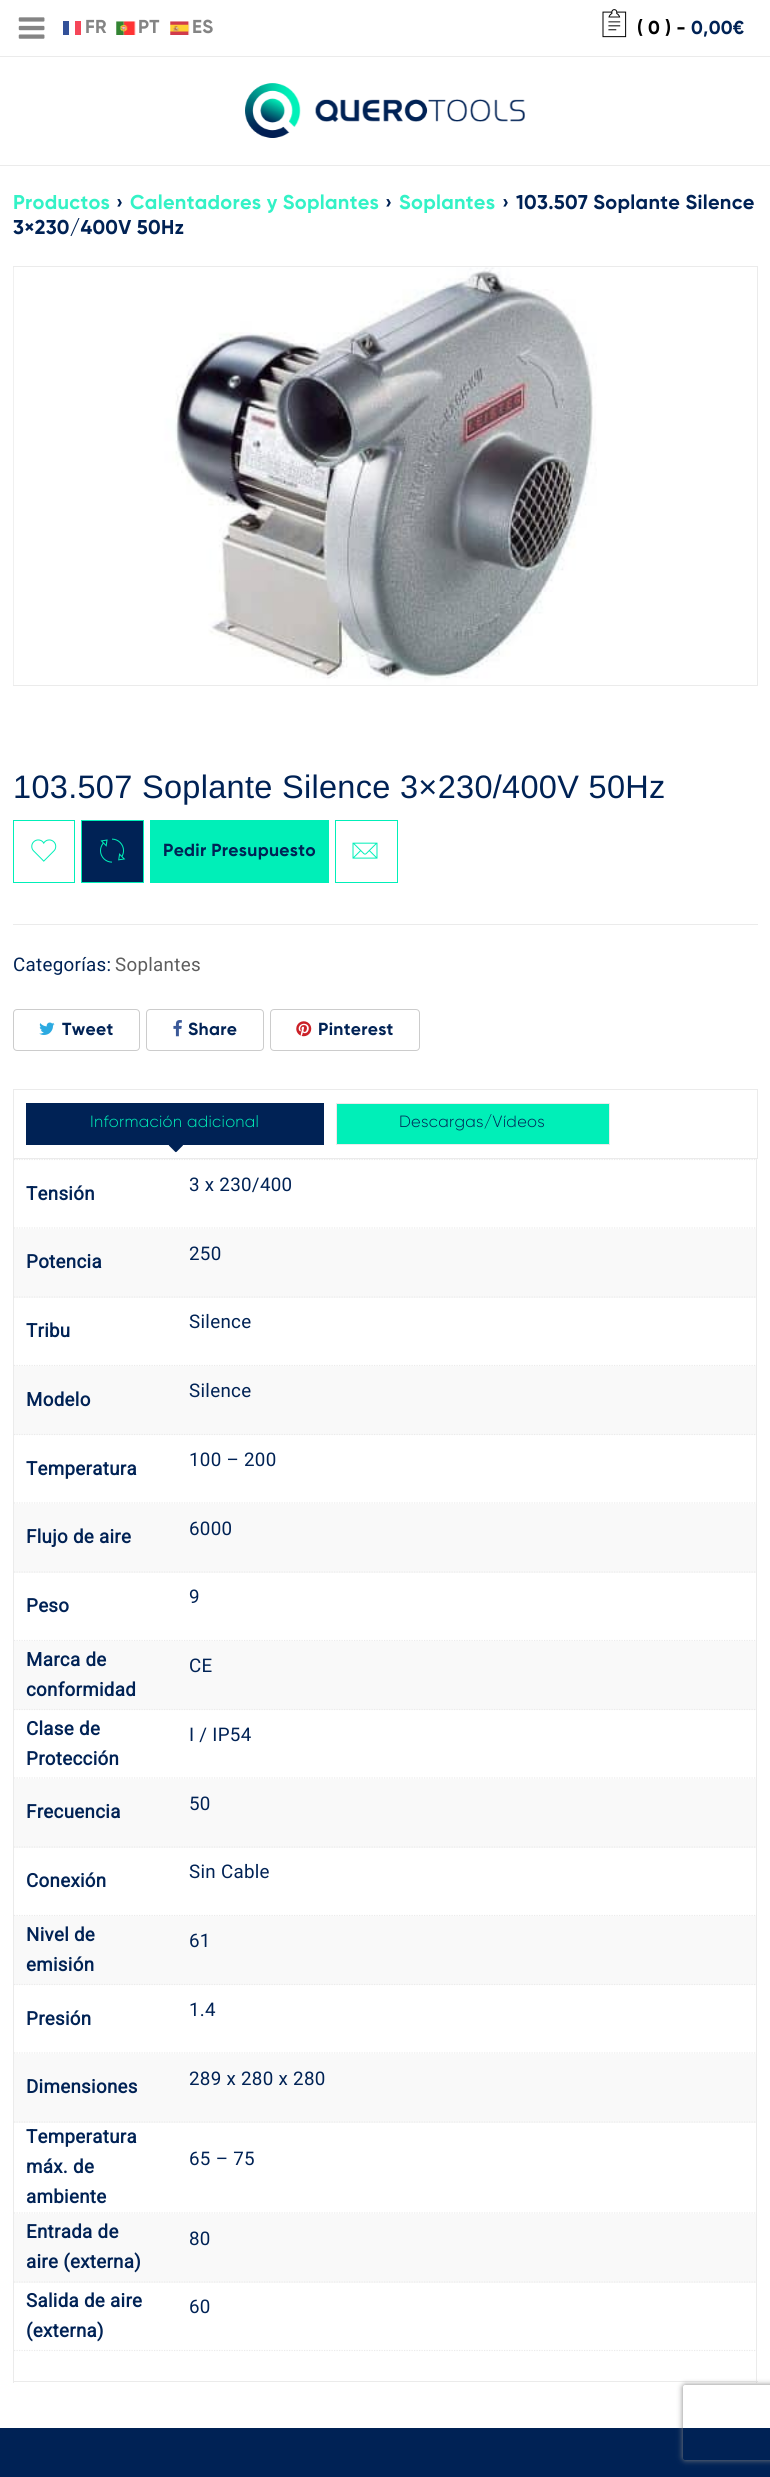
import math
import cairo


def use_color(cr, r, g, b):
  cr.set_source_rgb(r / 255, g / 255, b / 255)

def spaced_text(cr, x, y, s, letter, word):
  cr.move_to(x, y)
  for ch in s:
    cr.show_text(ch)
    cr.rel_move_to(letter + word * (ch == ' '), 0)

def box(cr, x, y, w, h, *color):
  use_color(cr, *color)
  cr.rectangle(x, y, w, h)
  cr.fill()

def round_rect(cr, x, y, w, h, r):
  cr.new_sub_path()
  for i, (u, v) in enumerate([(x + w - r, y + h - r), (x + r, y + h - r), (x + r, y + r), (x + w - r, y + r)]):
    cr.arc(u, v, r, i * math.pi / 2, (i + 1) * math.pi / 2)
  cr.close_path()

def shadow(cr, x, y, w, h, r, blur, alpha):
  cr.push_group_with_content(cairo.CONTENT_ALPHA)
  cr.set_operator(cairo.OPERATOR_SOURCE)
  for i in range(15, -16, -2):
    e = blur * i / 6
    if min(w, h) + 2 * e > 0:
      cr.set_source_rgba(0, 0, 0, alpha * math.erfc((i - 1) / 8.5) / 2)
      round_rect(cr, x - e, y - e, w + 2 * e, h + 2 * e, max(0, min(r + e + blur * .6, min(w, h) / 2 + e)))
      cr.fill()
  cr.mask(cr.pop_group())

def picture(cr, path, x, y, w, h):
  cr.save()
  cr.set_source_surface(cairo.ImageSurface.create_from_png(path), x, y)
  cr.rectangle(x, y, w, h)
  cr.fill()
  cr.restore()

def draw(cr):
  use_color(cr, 255, 255, 255)
  cr.paint()
  box(cr, 0, 56, 770, 1, 235, 235, 235)
  picture(cr, "img_01.png", 18, 17, 27, 22)
  box(cr, 63, 21, 6, 14, 51, 81, 153)
  box(cr, 75, 21, 6, 14, 245, 70, 89)
  picture(cr, "img_02.png", 116, 21, 20, 14)
  picture(cr, "img_03.png", 170, 21, 20, 14)
  picture(cr, "img_04.png", 602, 9, 25, 29)
  box(cr, 0, 165, 770, 1, 235, 235, 235)
  picture(cr, "img_05.png", 245, 83, 280, 55)
  cr.rectangle(13.5, 266.5, 744, 419)
  cr.set_line_width(1)
  cr.stroke()
  picture(cr, "img_06.png", 13, 267, 584, 418)
  cr.rectangle(13.5, 820.5, 61, 62)
  use_color(cr, 0, 239, 184)
  cr.stroke()
  picture(cr, "img_07.png", 31, 839, 26, 23)
  use_color(cr, 0, 34, 85)
  cr.rectangle(81.5, 820.5, 62, 62)
  cr.fill_preserve()
  use_color(cr, 0, 239, 184)
  cr.stroke()
  picture(cr, "img_08.png", 100, 838, 26, 25)
  box(cr, 150, 820, 179, 63, 0, 239, 184)
  cr.rectangle(335.5, 820.5, 62, 62)
  cr.stroke()
  picture(cr, "img_09.png", 352, 842, 26, 17)
  box(cr, 13, 924, 745, 1, 235, 235, 235)
  round_rect(cr, 13.5, 1009.5, 126, 41, 3.5)
  use_color(cr, 204, 204, 204)
  cr.stroke()
  picture(cr, "img_10.png", 39, 1022, 16, 13)
  round_rect(cr, 146.5, 1009.5, 117, 41, 3.5)
  cr.stroke()
  picture(cr, "img_11.png", 173, 1020, 9, 17)
  round_rect(cr, 270.5, 1009.5, 149, 41, 3.5)
  cr.stroke()
  picture(cr, "img_12.png", 296, 1021, 16, 16)
  cr.new_path()
  cr.move_to(14, 1159.5)
  cr.line_to(756, 1159.5)
  use_color(cr, 235, 235, 235)
  cr.set_line_width(1.2)
  cr.set_dash([1.25, 1.25])
  cr.stroke()
  cr.rectangle(13.5, 1089.5, 744, 69)
  cr.set_line_width(1)
  cr.set_dash([])
  cr.stroke()
  box(cr, 26, 1103, 298, 42, 0, 34, 85)
  picture(cr, "img_13.png", 168, 1145, 15, 8)
  use_color(cr, 0, 239, 184)
  cr.rectangle(336.5, 1103.5, 273, 41)
  cr.fill_preserve()
  use_color(cr, 235, 235, 235)
  cr.stroke()
  box(cr, 756, 1159, 1, 1224, 235, 235, 235)
  box(cr, 13, 2381, 745, 1, 235, 235, 235)
  box(cr, 13, 1159, 1, 1224, 235, 235, 235)
  cr.new_path()
  cr.move_to(14, 1228)
  cr.line_to(164, 1228)
  cr.set_line_width(1.2)
  cr.set_dash([1.25, 1.25])
  cr.stroke()
  cr.new_path()
  cr.move_to(164, 1228)
  cr.line_to(756, 1228)
  cr.stroke()
  box(cr, 14, 1229, 742, 69, 249, 249, 249)
  cr.new_path()
  cr.move_to(14, 1297)
  cr.line_to(164, 1297)
  use_color(cr, 235, 235, 235)
  cr.stroke()
  cr.new_path()
  cr.move_to(164, 1297)
  cr.line_to(756, 1297)
  cr.stroke()
  cr.new_path()
  cr.move_to(14, 1365.5)
  cr.line_to(164, 1365.5)
  cr.stroke()
  cr.new_path()
  cr.move_to(164, 1365.5)
  cr.line_to(756, 1365.5)
  cr.stroke()
  box(cr, 14, 1366, 742, 69, 249, 249, 249)
  cr.new_path()
  cr.move_to(14, 1434.5)
  cr.line_to(164, 1434.5)
  use_color(cr, 235, 235, 235)
  cr.stroke()
  cr.new_path()
  cr.move_to(164, 1434.5)
  cr.line_to(756, 1434.5)
  cr.stroke()
  cr.new_path()
  cr.move_to(164, 1503)
  cr.line_to(756, 1503)
  cr.stroke()
  cr.new_path()
  cr.move_to(14, 1503)
  cr.line_to(164, 1503)
  cr.stroke()
  box(cr, 14, 1504, 742, 69, 249, 249, 249)
  cr.new_path()
  cr.move_to(14, 1572)
  cr.line_to(164, 1572)
  use_color(cr, 235, 235, 235)
  cr.stroke()
  cr.new_path()
  cr.move_to(164, 1572)
  cr.line_to(756, 1572)
  cr.stroke()
  cr.new_path()
  cr.move_to(164, 1640.5)
  cr.line_to(756, 1640.5)
  cr.stroke()
  cr.new_path()
  cr.move_to(14, 1640.5)
  cr.line_to(164, 1640.5)
  cr.stroke()
  box(cr, 14, 1641, 742, 69, 249, 249, 249)
  cr.new_path()
  cr.move_to(14, 1709.5)
  cr.line_to(164, 1709.5)
  use_color(cr, 235, 235, 235)
  cr.stroke()
  cr.new_path()
  cr.move_to(164, 1709.5)
  cr.line_to(756, 1709.5)
  cr.stroke()
  cr.new_path()
  cr.move_to(14, 1778)
  cr.line_to(164, 1778)
  cr.stroke()
  cr.new_path()
  cr.move_to(164, 1778)
  cr.line_to(756, 1778)
  cr.stroke()
  box(cr, 14, 1779, 742, 69, 249, 249, 249)
  cr.new_path()
  cr.move_to(14, 1847)
  cr.line_to(164, 1847)
  use_color(cr, 235, 235, 235)
  cr.stroke()
  cr.new_path()
  cr.move_to(164, 1847)
  cr.line_to(756, 1847)
  cr.stroke()
  cr.new_path()
  cr.move_to(14, 1915.5)
  cr.line_to(164, 1915.5)
  cr.stroke()
  cr.new_path()
  cr.move_to(164, 1915.5)
  cr.line_to(756, 1915.5)
  cr.stroke()
  box(cr, 14, 1916, 742, 69, 249, 249, 249)
  cr.new_path()
  cr.move_to(14, 1984.5)
  cr.line_to(164, 1984.5)
  use_color(cr, 235, 235, 235)
  cr.stroke()
  cr.new_path()
  cr.move_to(164, 1984.5)
  cr.line_to(756, 1984.5)
  cr.stroke()
  cr.new_path()
  cr.move_to(14, 2053)
  cr.line_to(164, 2053)
  cr.stroke()
  cr.new_path()
  cr.move_to(164, 2053)
  cr.line_to(756, 2053)
  cr.stroke()
  box(cr, 14, 2054, 742, 69, 249, 249, 249)
  cr.new_path()
  cr.move_to(14, 2122)
  cr.line_to(164, 2122)
  use_color(cr, 235, 235, 235)
  cr.stroke()
  cr.new_path()
  cr.move_to(164, 2122)
  cr.line_to(756, 2122)
  cr.stroke()
  cr.new_path()
  cr.move_to(14, 2213)
  cr.line_to(164, 2213)
  cr.stroke()
  cr.new_path()
  cr.move_to(164, 2213)
  cr.line_to(756, 2213)
  cr.stroke()
  box(cr, 14, 2214, 742, 69, 249, 249, 249)
  cr.new_path()
  cr.move_to(14, 2282)
  cr.line_to(164, 2282)
  use_color(cr, 235, 235, 235)
  cr.stroke()
  cr.new_path()
  cr.move_to(164, 2282)
  cr.line_to(756, 2282)
  cr.stroke()
  cr.new_path()
  cr.move_to(14, 2350.5)
  cr.line_to(164, 2350.5)
  cr.stroke()
  cr.new_path()
  cr.move_to(164, 2350.5)
  cr.line_to(756, 2350.5)
  cr.stroke()
  box(cr, 0, 2428, 770, 49, 0, 34, 85)
  cr.save()
  cr.set_fill_rule(cairo.FILL_RULE_EVEN_ODD)
  cr.new_path()
  cr.move_to(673, 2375)
  cr.line_to(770, 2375)
  cr.line_to(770, 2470)
  cr.line_to(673, 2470)
  cr.close_path()
  cr.move_to(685.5, 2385)
  cr.line_to(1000.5, 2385)
  cr.curve_to(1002, 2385, 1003, 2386, 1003, 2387.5)
  cr.line_to(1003, 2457.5)
  cr.curve_to(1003, 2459, 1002, 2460, 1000.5, 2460)
  cr.line_to(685.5, 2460)
  cr.curve_to(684, 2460, 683, 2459, 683, 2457.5)
  cr.line_to(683, 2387.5)
  cr.curve_to(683, 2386, 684, 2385, 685.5, 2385)
  cr.close_path()
  cr.clip()
  use_color(cr, 128, 128, 128)
  shadow(cr, 683, 2385, 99, 75, 2.5, 3, 1)
  cr.restore()
  cr.select_font_face("Gilroy", cairo.FONT_SLANT_NORMAL, cairo.FONT_WEIGHT_BOLD)
  cr.set_font_size(18.75)
  use_color(cr, 132, 132, 132)
  spaced_text(cr, 85, 33, "FR", 0.3, 0)
  spaced_text(cr, 138, 33, "PT", 0.3, 0)
  spaced_text(cr, 192, 33, "ES", 0.3, 0)
  use_color(cr, 0, 0, 0)
  spaced_text(cr, 637, 34, "( 0 ) -", 0.3, 0)
  use_color(cr, 0, 34, 85)
  spaced_text(cr, 691, 34, "0,00€", 0.3, 0)
  cr.set_font_size(20)
  use_color(cr, 51, 242, 198)
  spaced_text(cr, 13, 209, "Productos", 0.3, 0)
  use_color(cr, 0, 34, 85)
  spaced_text(cr, 116, 209, "›", 0.3, 0)
  use_color(cr, 51, 242, 198)
  spaced_text(cr, 130, 209, "Calentadores y Soplantes", 0.3, 0)
  use_color(cr, 0, 34, 85)
  spaced_text(cr, 385, 209, "›", 0.3, 0)
  use_color(cr, 51, 242, 198)
  spaced_text(cr, 399, 209, "Soplantes", 0.3, 0)
  use_color(cr, 0, 34, 85)
  spaced_text(cr, 502, 209, "›", 0.3, 0)
  spaced_text(cr, 516, 209, "103.507 Soplante Silence", 0.3, 0)
  spaced_text(cr, 13, 234, "3×230/400V 50Hz", 0.3, 0)
  cr.select_font_face("Liberation Sans")
  cr.set_font_size(32.5)
  spaced_text(cr, 13, 798, "103.507 Soplante Silence 3×230/400V 50Hz", 0.3, 0)
  cr.select_font_face("Gilroy", cairo.FONT_SLANT_NORMAL, cairo.FONT_WEIGHT_BOLD)
  cr.set_font_size(17.5)
  spaced_text(cr, 163, 856, "Pedir Presupuesto", 0.3, 0)
  cr.select_font_face("Roboto")
  cr.set_font_size(18.75)
  spaced_text(cr, 13, 971, "Categorías:", 0.3, 0)
  use_color(cr, 93, 93, 93)
  spaced_text(cr, 115, 971, "Soplantes", 0.3, 0)
  cr.select_font_face("Gilroy", cairo.FONT_SLANT_NORMAL, cairo.FONT_WEIGHT_BOLD)
  cr.set_font_size(17.5)
  use_color(cr, 0, 34, 85)
  spaced_text(cr, 62, 1035, "Tweet", 0.3, 0)
  spaced_text(cr, 188, 1035, "Share", 0.3, 0)
  spaced_text(cr, 318, 1035, "Pinterest", 0.3, 0)
  cr.select_font_face("Gilroy Light")
  cr.set_font_size(16.25)
  use_color(cr, 0, 239, 184)
  spaced_text(cr, 90, 1127, "Información adicional", 0.3, 0)
  use_color(cr, 0, 34, 85)
  spaced_text(cr, 399, 1127, "Descargas/Vídeos", 0.3, 0)
  cr.select_font_face("Roboto", cairo.FONT_SLANT_NORMAL, cairo.FONT_WEIGHT_BOLD)
  cr.set_font_size(18.75)
  spaced_text(cr, 26, 1200, "Tensión", 0.3, 0)
  cr.select_font_face("Roboto")
  spaced_text(cr, 189, 1191, "3 x 230/400", 0.3, 0)
  cr.select_font_face("Roboto", cairo.FONT_SLANT_NORMAL, cairo.FONT_WEIGHT_BOLD)
  spaced_text(cr, 26, 1268, "Potencia", 0.3, 0)
  cr.select_font_face("Roboto")
  spaced_text(cr, 189, 1260, "250", 0.3, 0)
  cr.select_font_face("Roboto", cairo.FONT_SLANT_NORMAL, cairo.FONT_WEIGHT_BOLD)
  spaced_text(cr, 26, 1337, "Tribu", 0.3, 0)
  cr.select_font_face("Roboto")
  spaced_text(cr, 189, 1328, "Silence", 0.3, 0)
  cr.select_font_face("Roboto", cairo.FONT_SLANT_NORMAL, cairo.FONT_WEIGHT_BOLD)
  spaced_text(cr, 26, 1406, "Modelo", 0.3, 0)
  cr.select_font_face("Roboto")
  spaced_text(cr, 189, 1397, "Silence", 0.3, 0)
  spaced_text(cr, 189, 1466, "100 – 200", 0.3, 0)
  cr.select_font_face("Roboto", cairo.FONT_SLANT_NORMAL, cairo.FONT_WEIGHT_BOLD)
  spaced_text(cr, 26, 1475, "Temperatura", 0.3, 0)
  spaced_text(cr, 26, 1543, "Flujo de aire", 0.3, 0)
  cr.select_font_face("Roboto")
  spaced_text(cr, 189, 1535, "6000", 0.3, 0)
  spaced_text(cr, 189, 1603, "9", 0.3, 0)
  cr.select_font_face("Roboto", cairo.FONT_SLANT_NORMAL, cairo.FONT_WEIGHT_BOLD)
  spaced_text(cr, 26, 1612, "Peso", 0.3, 0)
  spaced_text(cr, 26, 1666, "Marca de", 0.3, 0)
  spaced_text(cr, 26, 1696, "conformidad", 0.3, 0)
  cr.select_font_face("Roboto")
  spaced_text(cr, 189, 1672, "CE", 0.3, 0)
  cr.select_font_face("Roboto", cairo.FONT_SLANT_NORMAL, cairo.FONT_WEIGHT_BOLD)
  spaced_text(cr, 26, 1735, "Clase de", 0.3, 0)
  spaced_text(cr, 26, 1765, "Protección", 0.3, 0)
  cr.select_font_face("Roboto")
  spaced_text(cr, 189, 1741, "I / IP54", 0.3, 0)
  cr.select_font_face("Roboto", cairo.FONT_SLANT_NORMAL, cairo.FONT_WEIGHT_BOLD)
  spaced_text(cr, 26, 1818, "Frecuencia", 0.3, 0)
  cr.select_font_face("Roboto")
  spaced_text(cr, 189, 1810, "50", 0.3, 0)
  cr.select_font_face("Roboto", cairo.FONT_SLANT_NORMAL, cairo.FONT_WEIGHT_BOLD)
  spaced_text(cr, 26, 1887, "Conexión", 0.3, 0)
  cr.select_font_face("Roboto")
  spaced_text(cr, 189, 1878, "Sin Cable", 0.3, 0)
  cr.select_font_face("Roboto", cairo.FONT_SLANT_NORMAL, cairo.FONT_WEIGHT_BOLD)
  spaced_text(cr, 26, 1941, "Nivel de", 0.3, 0)
  spaced_text(cr, 26, 1971, "emisión", 0.3, 0)
  cr.select_font_face("Roboto")
  spaced_text(cr, 189, 1947, "61", 0.3, 0)
  cr.select_font_face("Roboto", cairo.FONT_SLANT_NORMAL, cairo.FONT_WEIGHT_BOLD)
  spaced_text(cr, 26, 2025, "Presión", 0.3, 0)
  cr.select_font_face("Roboto")
  spaced_text(cr, 189, 2016, "1.4", 0.3, 0)
  cr.select_font_face("Roboto", cairo.FONT_SLANT_NORMAL, cairo.FONT_WEIGHT_BOLD)
  spaced_text(cr, 26, 2093, "Dimensiones", 0.3, 0)
  cr.select_font_face("Roboto")
  spaced_text(cr, 189, 2085, "289 x 280 x 280", 0.3, 0)
  cr.select_font_face("Roboto", cairo.FONT_SLANT_NORMAL, cairo.FONT_WEIGHT_BOLD)
  spaced_text(cr, 26, 2143, "Temperatura", 0.3, 0)
  spaced_text(cr, 26, 2173, "máx. de", 0.3, 0)
  spaced_text(cr, 26, 2203, "ambiente", 0.3, 0)
  cr.select_font_face("Roboto")
  spaced_text(cr, 189, 2165, "65 – 75", 0.3, 0)
  cr.select_font_face("Roboto", cairo.FONT_SLANT_NORMAL, cairo.FONT_WEIGHT_BOLD)
  spaced_text(cr, 26, 2238, "Entrada de", 0.3, 0)
  spaced_text(cr, 26, 2268, "aire (externa)", 0.3, 0)
  cr.select_font_face("Roboto")
  spaced_text(cr, 189, 2245, "80", 0.3, 0)
  cr.select_font_face("Roboto", cairo.FONT_SLANT_NORMAL, cairo.FONT_WEIGHT_BOLD)
  spaced_text(cr, 26, 2307, "Salida de aire", 0.3, 0)
  spaced_text(cr, 26, 2337, "(externa)", 0.3, 0)
  cr.select_font_face("Roboto")
  spaced_text(cr, 189, 2313, "60", 0.3, 0)


surface = cairo.ImageSurface(cairo.FORMAT_RGB24, 770, 2477)
cr = cairo.Context(surface)
options = cairo.FontOptions()
options.set_hint_metrics(cairo.HINT_METRICS_OFF)
options.set_hint_style(cairo.HINT_STYLE_NONE)
cr.set_font_options(options)
cr.set_miter_limit(4)
draw(cr)
surface.write_to_png("out.png")
